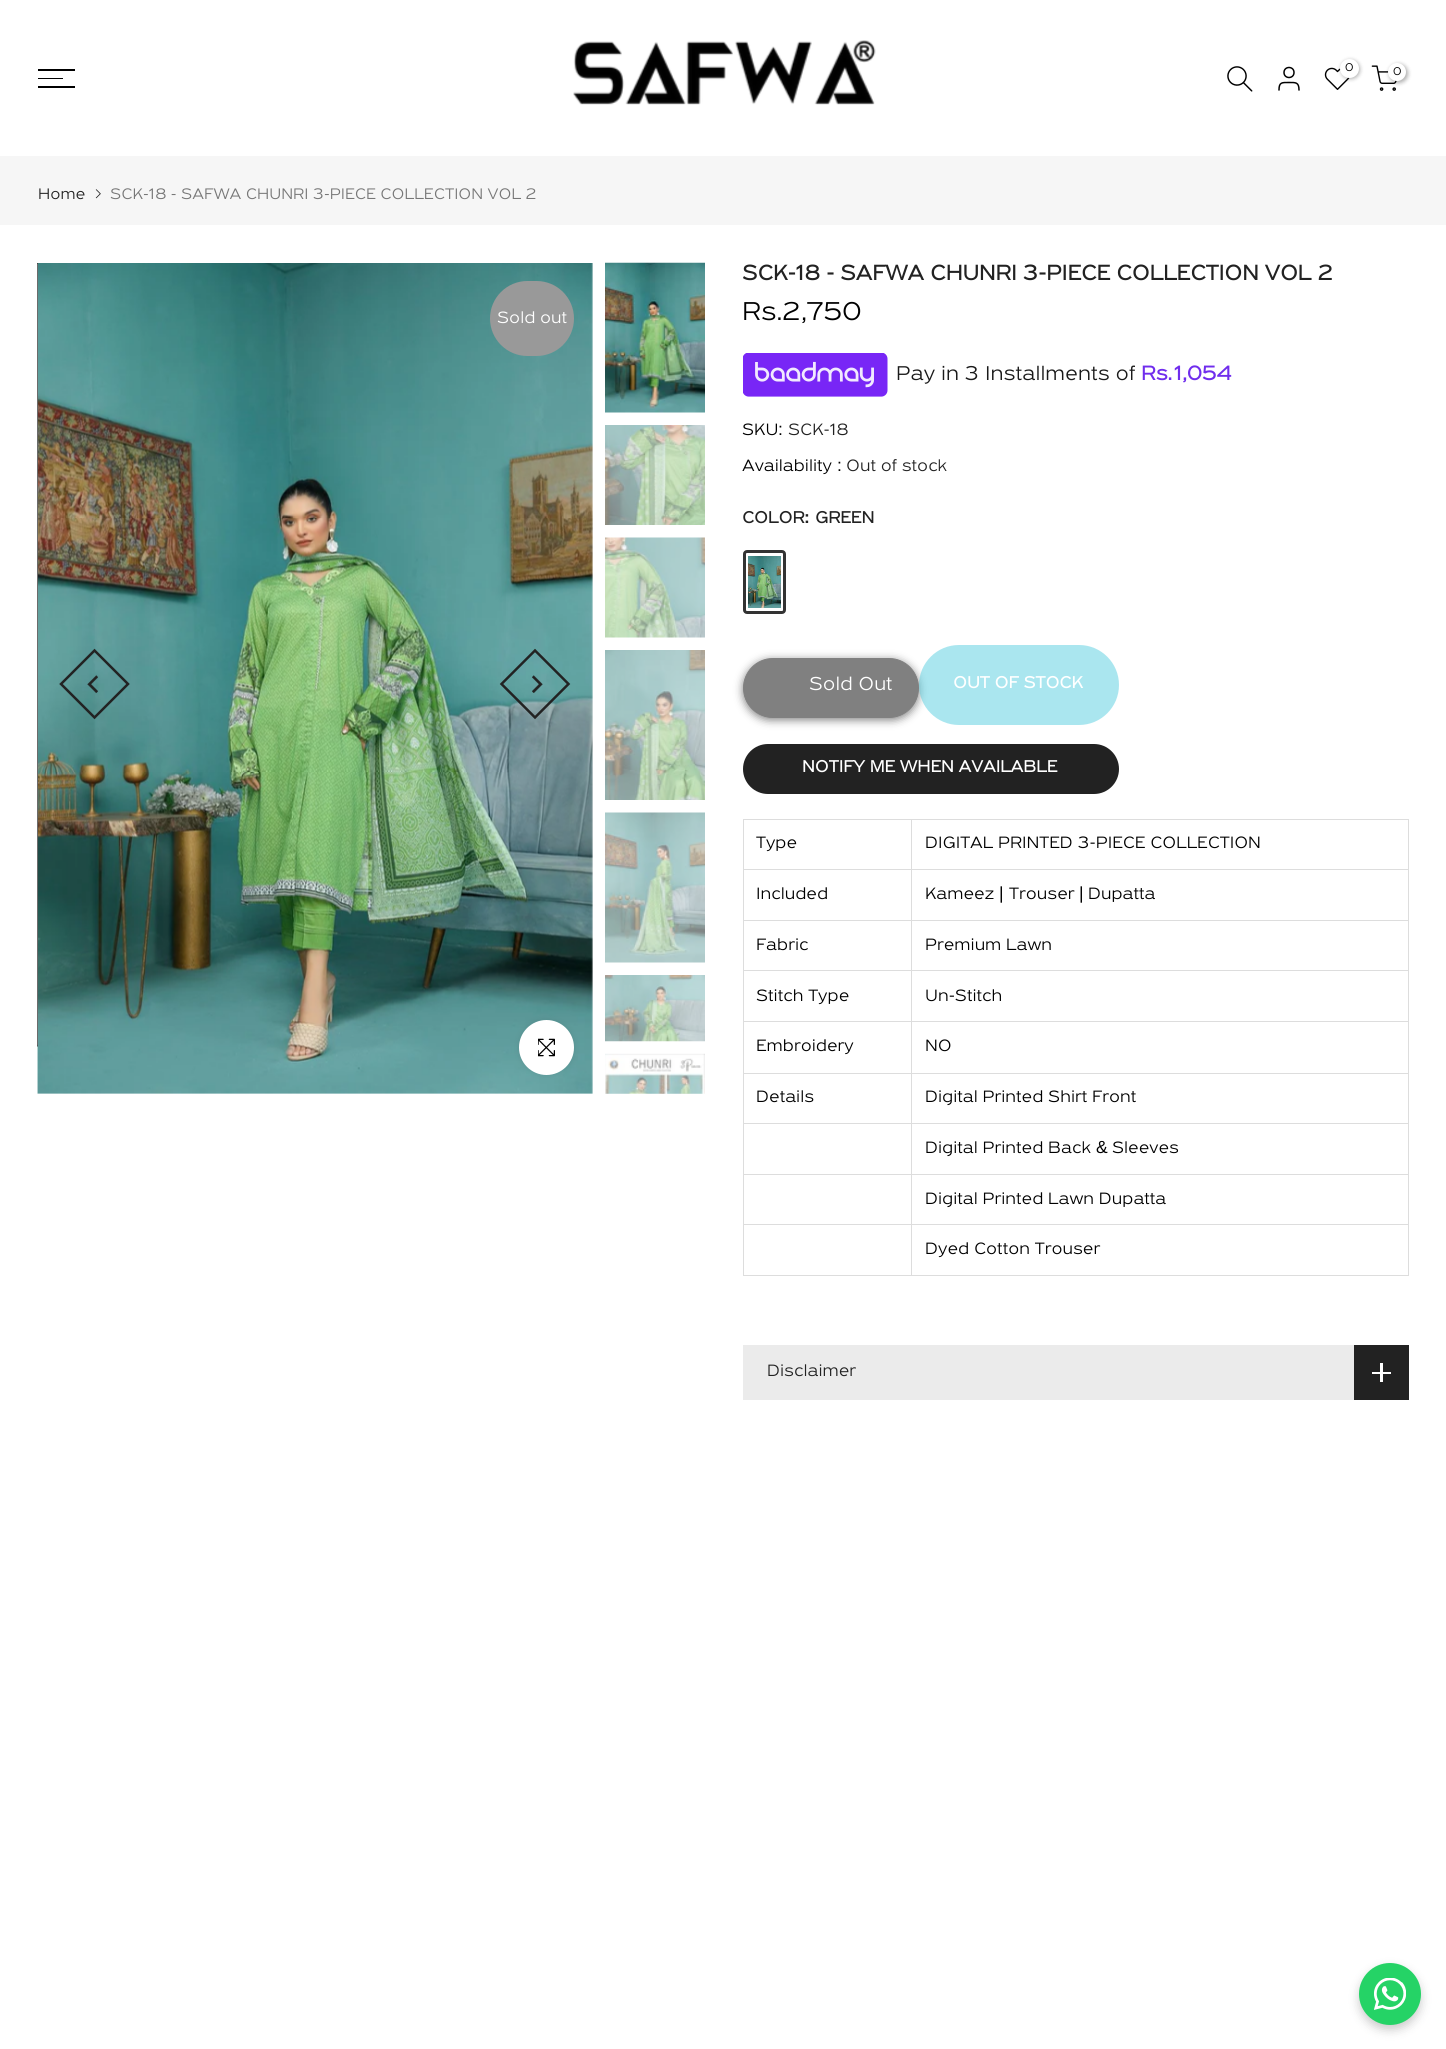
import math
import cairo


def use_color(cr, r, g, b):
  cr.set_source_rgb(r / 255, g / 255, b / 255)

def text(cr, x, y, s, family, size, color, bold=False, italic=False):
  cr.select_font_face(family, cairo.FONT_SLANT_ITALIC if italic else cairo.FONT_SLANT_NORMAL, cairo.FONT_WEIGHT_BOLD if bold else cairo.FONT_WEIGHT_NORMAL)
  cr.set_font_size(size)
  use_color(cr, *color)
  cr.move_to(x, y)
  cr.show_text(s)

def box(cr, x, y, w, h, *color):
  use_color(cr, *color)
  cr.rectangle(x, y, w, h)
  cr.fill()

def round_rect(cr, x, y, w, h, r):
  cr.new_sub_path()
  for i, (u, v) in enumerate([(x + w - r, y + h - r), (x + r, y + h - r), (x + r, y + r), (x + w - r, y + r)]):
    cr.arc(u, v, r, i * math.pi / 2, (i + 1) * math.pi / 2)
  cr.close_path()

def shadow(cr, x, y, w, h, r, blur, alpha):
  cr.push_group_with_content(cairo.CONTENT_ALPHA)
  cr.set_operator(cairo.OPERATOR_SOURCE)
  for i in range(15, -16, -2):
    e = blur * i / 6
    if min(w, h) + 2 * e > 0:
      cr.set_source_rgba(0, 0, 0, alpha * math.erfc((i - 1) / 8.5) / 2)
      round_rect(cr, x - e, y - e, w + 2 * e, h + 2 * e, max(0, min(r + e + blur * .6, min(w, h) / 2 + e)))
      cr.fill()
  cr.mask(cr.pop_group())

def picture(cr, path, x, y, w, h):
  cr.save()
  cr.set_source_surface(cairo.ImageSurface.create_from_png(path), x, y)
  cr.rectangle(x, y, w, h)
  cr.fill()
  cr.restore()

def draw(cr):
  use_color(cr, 255, 255, 255)
  cr.paint()
  box(cr, 38, 69, 37, 2, 0, 0, 0)
  box(cr, 38, 78, 25, 1, 0, 0, 0)
  box(cr, 38, 86, 37, 2, 0, 0, 0)
  picture(cr, "img_01.png", 573, 40, 303, 65)
  picture(cr, "img_02.png", 1227, 66, 26, 26)
  cr.arc(1289, 72.5, 5, 0, 2 * math.pi)
  cr.set_line_width(1.5)
  cr.stroke()
  cr.new_path()
  cr.move_to(1299, 90)
  cr.curve_to(1299, 82, 1295.5, 82.5, 1289, 82.5)
  cr.curve_to(1282, 82.5, 1279, 82, 1279, 90)
  cr.set_line_cap(cairo.LINE_CAP_ROUND)
  cr.set_line_join(cairo.LINE_JOIN_ROUND)
  cr.stroke()
  picture(cr, "img_03.png", 1324, 67, 26, 23)
  use_color(cr, 0, 0, 0)
  shadow(cr, 1341, 60, 19, 19, 9.5, 2, 0.3)
  use_color(cr, 255, 255, 255)
  cr.arc(1349.5, 68.5, 9.5, 0, 2 * math.pi)
  cr.fill()
  picture(cr, "img_04.png", 1371, 65, 26, 26)
  use_color(cr, 0, 0, 0)
  shadow(cr, 1389, 64, 19, 19, 9.5, 2, 0.3)
  use_color(cr, 255, 255, 255)
  cr.arc(1397, 72, 9, 0, 2 * math.pi)
  cr.fill()
  box(cr, 0, 156, 1446, 69, 246, 246, 246)
  picture(cr, "img_05.png", 95, 189, 6, 10)
  picture(cr, "img_06.png", 37, 263, 556, 831)
  picture(cr, "img_07.png", 37, 263, 1, 784)
  cr.new_path()
  cr.move_to(94.5, 650.5)
  cr.line_to(128, 684)
  cr.line_to(94.5, 717.5)
  cr.line_to(61, 684)
  cr.close_path()
  use_color(cr, 34, 34, 34)
  cr.set_line_width(2.5)
  cr.set_line_cap(cairo.LINE_CAP_BUTT)
  cr.set_line_join(cairo.LINE_JOIN_MITER)
  cr.stroke()
  picture(cr, "img_08.png", 87, 675, 11, 18)
  cr.new_path()
  cr.move_to(501.5, 684)
  cr.line_to(535, 650.5)
  cr.line_to(568.5, 684)
  cr.line_to(535, 717.5)
  cr.close_path()
  cr.stroke()
  picture(cr, "img_09.png", 532, 675, 11, 18)
  use_color(cr, 153, 153, 153)
  round_rect(cr, 490, 281, 84, 75, 37.5)
  cr.fill()
  use_color(cr, 0, 0, 0)
  shadow(cr, 519, 1020, 55, 55, 27.5, 3, 0.09)
  use_color(cr, 255, 255, 255)
  cr.arc(546.5, 1047.5, 27.5, 0, 2 * math.pi)
  cr.fill()
  picture(cr, "img_10.png", 538, 1038, 17, 19)
  picture(cr, "img_11.png", 605, 262, 100, 151)
  picture(cr, "img_12.png", 605, 425, 100, 100)
  picture(cr, "img_13.png", 605, 537, 100, 101)
  picture(cr, "img_14.png", 605, 650, 100, 150)
  picture(cr, "img_15.png", 605, 812, 100, 151)
  picture(cr, "img_16.png", 605, 975, 100, 67)
  picture(cr, "img_17.png", 605, 1053, 100, 41)
  picture(cr, "img_18.png", 743, 353, 145, 44)
  picture(cr, "img_19.png", 743, 552, 38, 60)
  cr.rectangle(746.5, 554.5, 36, 55)
  cr.set_line_width(3)
  cr.stroke()
  round_rect(cr, 744.5, 551.5, 40, 61, 2.5)
  use_color(cr, 51, 51, 51)
  cr.stroke()
  use_color(cr, 128, 128, 128)
  shadow(cr, 743, 660, 176, 60, 30, 4.5, 1)
  use_color(cr, 128, 128, 128)
  round_rect(cr, 743.5, 658.5, 175, 59, 29.5)
  cr.fill_preserve()
  cr.set_line_width(1)
  cr.stroke()
  cr.set_source_rgba(0.337, 0.812, 0.882, 0.5)
  round_rect(cr, 919, 645, 200, 80, 40)
  cr.fill()
  use_color(cr, 34, 34, 34)
  round_rect(cr, 743, 744, 376, 50, 25)
  cr.fill()
  box(cr, 743, 819, 666, 1, 221, 221, 221)
  box(cr, 1408, 819, 1, 457, 221, 221, 221)
  box(cr, 743, 1275, 666, 1, 221, 221, 221)
  box(cr, 743, 819, 1, 457, 221, 221, 221)
  box(cr, 911, 1224, 1, 52, 221, 221, 221)
  box(cr, 911, 1224, 498, 1, 221, 221, 221)
  box(cr, 911, 1174, 1, 51, 221, 221, 221)
  box(cr, 911, 1174, 498, 1, 221, 221, 221)
  box(cr, 911, 1123, 1, 52, 221, 221, 221)
  box(cr, 911, 1123, 498, 1, 221, 221, 221)
  box(cr, 911, 1073, 1, 51, 221, 221, 221)
  box(cr, 911, 1073, 498, 1, 221, 221, 221)
  box(cr, 911, 1021, 1, 53, 221, 221, 221)
  box(cr, 911, 1021, 498, 1, 221, 221, 221)
  box(cr, 911, 970, 1, 53, 221, 221, 221)
  box(cr, 911, 970, 498, 1, 221, 221, 221)
  box(cr, 911, 920, 1, 51, 221, 221, 221)
  box(cr, 911, 920, 498, 1, 221, 221, 221)
  box(cr, 911, 869, 1, 52, 221, 221, 221)
  box(cr, 911, 869, 498, 1, 221, 221, 221)
  box(cr, 911, 819, 1, 51, 221, 221, 221)
  box(cr, 743, 869, 170, 1, 221, 221, 221)
  box(cr, 743, 920, 170, 1, 221, 221, 221)
  box(cr, 743, 970, 170, 1, 221, 221, 221)
  box(cr, 743, 1021, 170, 1, 221, 221, 221)
  box(cr, 743, 1073, 170, 1, 221, 221, 221)
  box(cr, 743, 1123, 170, 1, 221, 221, 221)
  box(cr, 743, 1174, 170, 1, 221, 221, 221)
  box(cr, 743, 1224, 170, 1, 221, 221, 221)
  box(cr, 743, 1345, 611, 55, 235, 235, 235)
  box(cr, 1354, 1345, 55, 55, 34, 34, 34)
  box(cr, 1380, 1363, 3, 19, 255, 255, 255)
  box(cr, 1372, 1372, 19, 2, 255, 255, 255)
  use_color(cr, 0, 0, 0)
  shadow(cr, 1359, 1968, 62, 62, 31, 5, 0.2)
  use_color(cr, 37, 211, 102)
  cr.arc(1390, 1994, 31, 0, 2 * math.pi)
  cr.fill()
  picture(cr, "img_20.png", 1374, 1978, 32, 32)
  text(cr, 1345, 71, "0", "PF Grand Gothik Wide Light", 12, (0, 0, 0))
  text(cr, 1393, 75, "0", "PF Grand Gothik Wide Light", 12, (0, 0, 0))
  text(cr, 38, 199, "Home", "PF Grand Gothik Wide Light", 16.25, (34, 34, 34))
  text(cr, 110, 199, "SCK-18 - SAFWA CHUNRI 3-PIECE COLLECTION VOL 2", "PF Grand Gothik Wide Light", 16.25, (119, 119, 119))
  text(cr, 497, 323, "Sold out", "PF Grand Gothik Wide Light", 17.5, (255, 255, 255))
  text(cr, 742, 280, "SCK-18 - SAFWA CHUNRI 3-PIECE COLLECTION VOL 2", "PF Grand Gothik Wide", 22.5, (34, 34, 34), bold=True)
  text(cr, 742, 320, "Rs.2,750", "PF Grand Gothik Wide Light", 27.5, (0, 0, 0))
  text(cr, 896, 380, "Pay in 3 Installments of", "PF Grand Gothik Wide Light", 21.25, (26, 26, 26))
  text(cr, 1141, 380, "Rs.", "PF Grand Gothik Wide", 21.25, (112, 45, 237), bold=True)
  text(cr, 1174, 380, "1,054", "PF Grand Gothik Wide", 21.25, (112, 45, 237), bold=True)
  text(cr, 742, 435, "SKU", "PF Grand Gothik Wide Light", 17.5, (0, 0, 0))
  text(cr, 778, 435, ":", "Liberation Sans", 17.5, (0, 0, 0))
  text(cr, 788, 435, "SCK-18", "PF Grand Gothik Wide Light", 17.5, (34, 34, 34))
  text(cr, 742, 471, "Availability", "PF Grand Gothik Wide Light", 17.5, (0, 0, 0))
  text(cr, 837, 471, ":", "Liberation Sans", 17.5, (0, 0, 0))
  text(cr, 846, 471, "Out of stock", "PF Grand Gothik Wide Light", 17.5, (34, 34, 34))
  text(cr, 742, 523, "COLOR", "PF Grand Gothik Wide", 17.5, (34, 34, 34), bold=True)
  text(cr, 804, 523, ":", "Liberation Sans", 17.5, (34, 34, 34), bold=True)
  text(cr, 815, 523, "GREEN", "PF Grand Gothik Wide", 17.5, (34, 34, 34), bold=True)
  text(cr, 809, 690, "Sold Out", "PF Grand Gothik Wide Light", 20, (255, 255, 255))
  text(cr, 953, 688, "OUT OF STOCK", "PF Grand Gothik Wide", 17.5, (255, 255, 255), bold=True)
  text(cr, 802, 772, "NOTIFY ME WHEN AVAILABLE", "PF Grand Gothik Wide", 17.5, (255, 255, 255), bold=True)
  text(cr, 756, 848, "Type", "PF Grand Gothik Wide Light", 17.5, (0, 0, 0))
  text(cr, 925, 848, "DIGITAL PRINTED 3-PIECE COLLECTION", "PF Grand Gothik Wide Light", 17.5, (0, 0, 0))
  text(cr, 756, 899, "Included", "PF Grand Gothik Wide Light", 17.5, (0, 0, 0))
  text(cr, 925, 899, "Kameez", "PF Grand Gothik Wide Light", 17.5, (0, 0, 0))
  text(cr, 999, 899, "|", "Liberation Sans", 17.5, (0, 0, 0))
  text(cr, 1009, 899, "Trouser", "PF Grand Gothik Wide Light", 17.5, (0, 0, 0))
  text(cr, 1079, 899, "|", "Liberation Sans", 17.5, (0, 0, 0))
  text(cr, 1088, 899, "Dupatta", "PF Grand Gothik Wide Light", 17.5, (0, 0, 0))
  text(cr, 756, 950, "Fabric", "PF Grand Gothik Wide Light", 17.5, (0, 0, 0))
  text(cr, 925, 950, "Premium Lawn", "PF Grand Gothik Wide Light", 17.5, (0, 0, 0))
  text(cr, 756, 1001, "Stitch Type", "PF Grand Gothik Wide Light", 17.5, (0, 0, 0))
  text(cr, 925, 1001, "Un-Stitch", "PF Grand Gothik Wide Light", 17.5, (0, 0, 0))
  text(cr, 756, 1051, "Embroidery", "PF Grand Gothik Wide Light", 17.5, (0, 0, 0))
  text(cr, 925, 1051, "NO", "PF Grand Gothik Wide Light", 17.5, (0, 0, 0))
  text(cr, 756, 1102, "Details", "PF Grand Gothik Wide Light", 17.5, (0, 0, 0))
  text(cr, 925, 1102, "Digital Printed Shirt Front", "PF Grand Gothik Wide Light", 17.5, (0, 0, 0))
  text(cr, 925, 1153, "Digital Printed Back", "PF Grand Gothik Wide Light", 17.5, (0, 0, 0))
  text(cr, 1096, 1153, "&", "Liberation Sans", 17.5, (0, 0, 0))
  text(cr, 1112, 1153, "Sleeves", "PF Grand Gothik Wide Light", 17.5, (0, 0, 0))
  text(cr, 925, 1204, "Digital Printed Lawn Dupatta", "PF Grand Gothik Wide Light", 17.5, (0, 0, 0))
  text(cr, 925, 1254, "Dyed Cotton Trouser", "PF Grand Gothik Wide Light", 17.5, (0, 0, 0))
  text(cr, 767, 1376, "Disclaimer", "PF Grand Gothik Wide Light", 17.5, (34, 34, 34))


surface = cairo.ImageSurface(cairo.FORMAT_RGB24, 1446, 2049)
cr = cairo.Context(surface)
options = cairo.FontOptions()
options.set_hint_metrics(cairo.HINT_METRICS_OFF)
options.set_hint_style(cairo.HINT_STYLE_NONE)
cr.set_font_options(options)
cr.set_miter_limit(4)
draw(cr)
surface.write_to_png("out.png")
